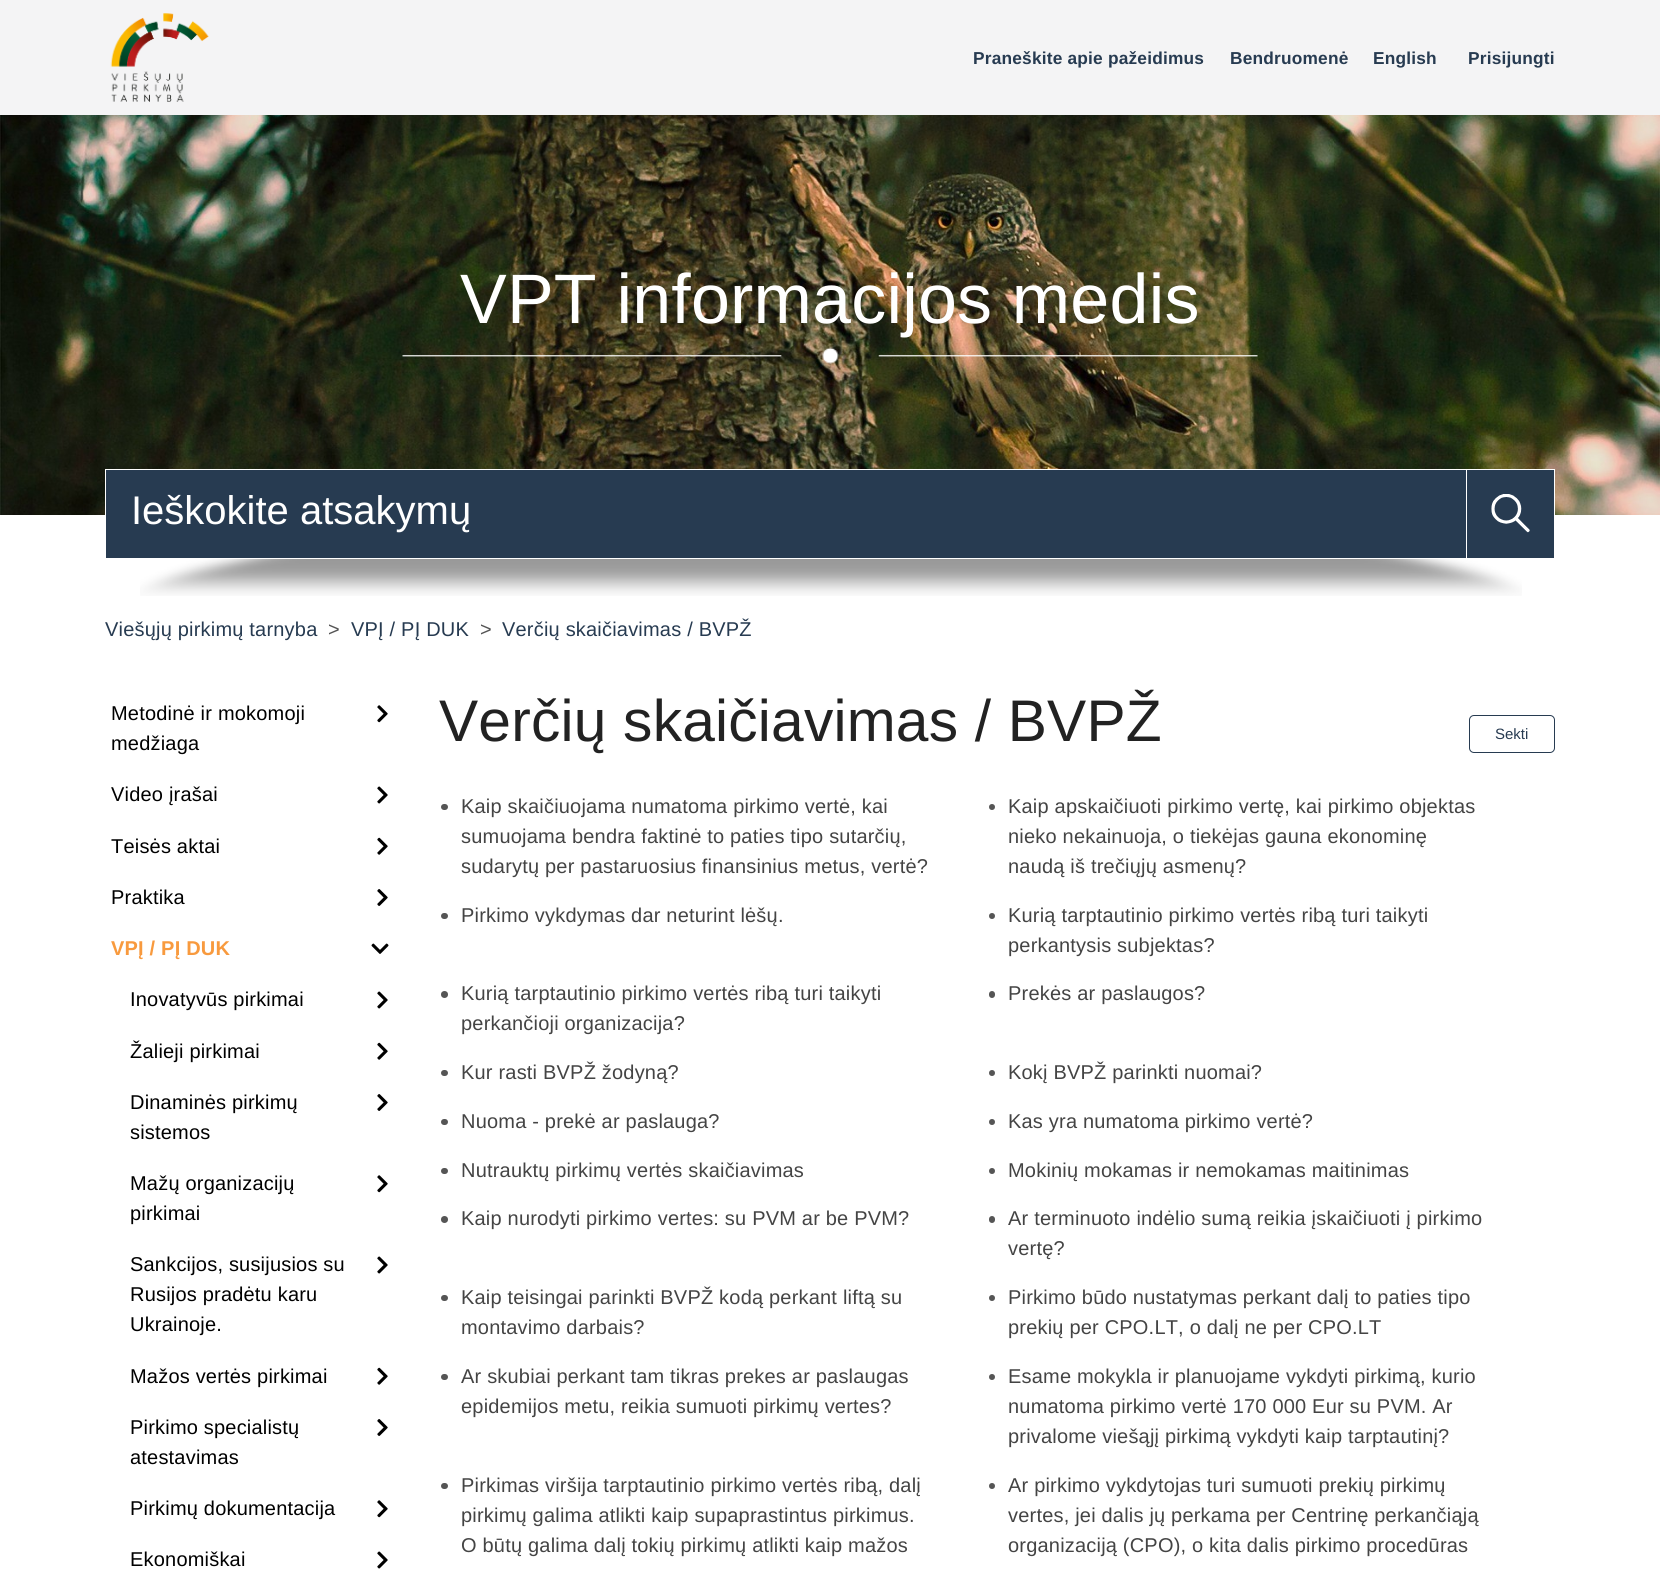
import math
import cairo


def use_color(cr, r, g, b):
  cr.set_source_rgb(r / 255, g / 255, b / 255)

def text(cr, x, y, s, family, size, color, bold=False, italic=False):
  cr.select_font_face(family, cairo.FONT_SLANT_ITALIC if italic else cairo.FONT_SLANT_NORMAL, cairo.FONT_WEIGHT_BOLD if bold else cairo.FONT_WEIGHT_NORMAL)
  cr.set_font_size(size)
  use_color(cr, *color)
  cr.move_to(x, y)
  cr.show_text(s)

def spaced_text(cr, x, y, s, letter, word):
  cr.move_to(x, y)
  for ch in s:
    cr.show_text(ch)
    cr.rel_move_to(letter + word * (ch == ' '), 0)

def box(cr, x, y, w, h, *color):
  use_color(cr, *color)
  cr.rectangle(x, y, w, h)
  cr.fill()

def round_rect(cr, x, y, w, h, r):
  cr.new_sub_path()
  for i, (u, v) in enumerate([(x + w - r, y + h - r), (x + r, y + h - r), (x + r, y + r), (x + w - r, y + r)]):
    cr.arc(u, v, r, i * math.pi / 2, (i + 1) * math.pi / 2)
  cr.close_path()

def picture(cr, path, x, y, w, h):
  cr.save()
  cr.set_source_surface(cairo.ImageSurface.create_from_png(path), x, y)
  cr.rectangle(x, y, w, h)
  cr.fill()
  cr.restore()

def draw(cr):
  use_color(cr, 255, 255, 255)
  cr.paint()
  box(cr, 0, 0, 1660, 115, 244, 244, 245)
  picture(cr, "img_01.png", 110, 13, 99, 89)
  picture(cr, "img_02.png", 0, 115, 1660, 400)
  picture(cr, "img_03.png", 402, 347, 856, 17)
  cr.rectangle(105.5, 469.5, 1449, 89)
  use_color(cr, 255, 255, 255)
  cr.set_line_width(1)
  cr.stroke()
  box(cr, 106, 470, 1448, 88, 39, 59, 81)
  picture(cr, "img_04.png", 1491, 494, 39, 39)
  box(cr, 1466, 470, 1, 88, 255, 255, 255)
  picture(cr, "img_05.png", 140, 559, 1382, 37)
  picture(cr, "img_06.png", 377, 705, 11, 18)
  picture(cr, "img_07.png", 377, 786, 11, 18)
  picture(cr, "img_08.png", 377, 837, 11, 18)
  picture(cr, "img_09.png", 377, 889, 11, 17)
  picture(cr, "img_10.png", 371, 943, 18, 11)
  picture(cr, "img_07.png", 377, 991, 11, 18)
  picture(cr, "img_08.png", 377, 1042, 11, 18)
  picture(cr, "img_09.png", 377, 1094, 11, 17)
  picture(cr, "img_06.png", 377, 1175, 11, 18)
  picture(cr, "img_07.png", 377, 1256, 11, 18)
  picture(cr, "img_08.png", 377, 1367, 11, 18)
  picture(cr, "img_09.png", 377, 1419, 11, 17)
  picture(cr, "img_06.png", 377, 1500, 11, 18)
  picture(cr, "img_07.png", 377, 1551, 11, 18)
  round_rect(cr, 1469.5, 715.5, 85, 37, 4.5)
  use_color(cr, 39, 59, 81)
  cr.stroke()
  use_color(cr, 85, 85, 85)
  round_rect(cr, 441, 804, 7, 6, 3)
  cr.fill()
  cr.arc(992, 807, 3, 0, 2 * math.pi)
  cr.fill()
  round_rect(cr, 441, 913, 7, 6, 3)
  cr.fill()
  cr.arc(992, 916, 3, 0, 2 * math.pi)
  cr.fill()
  cr.arc(444.5, 994.5, 3.5, 0, 2 * math.pi)
  cr.fill()
  round_rect(cr, 989, 991, 6, 7, 3)
  cr.fill()
  round_rect(cr, 441, 1070, 7, 6, 3)
  cr.fill()
  cr.arc(992, 1073, 3, 0, 2 * math.pi)
  cr.fill()
  round_rect(cr, 441, 1119, 7, 6, 3)
  cr.fill()
  cr.arc(992, 1122, 3, 0, 2 * math.pi)
  cr.fill()
  round_rect(cr, 441, 1168, 7, 6, 3)
  cr.fill()
  cr.arc(992, 1171, 3, 0, 2 * math.pi)
  cr.fill()
  cr.arc(444.5, 1219.5, 3.5, 0, 2 * math.pi)
  cr.fill()
  round_rect(cr, 989, 1216, 6, 7, 3)
  cr.fill()
  round_rect(cr, 441, 1295, 7, 6, 3)
  cr.fill()
  cr.arc(992, 1298, 3, 0, 2 * math.pi)
  cr.fill()
  round_rect(cr, 441, 1374, 7, 6, 3)
  cr.fill()
  cr.arc(992, 1377, 3, 0, 2 * math.pi)
  cr.fill()
  round_rect(cr, 441, 1483, 7, 6, 3)
  cr.fill()
  cr.arc(992, 1486, 3, 0, 2 * math.pi)
  cr.fill()
  cr.select_font_face("Liberation Sans", cairo.FONT_SLANT_NORMAL, cairo.FONT_WEIGHT_BOLD)
  cr.set_font_size(17.3)
  use_color(cr, 39, 59, 81)
  spaced_text(cr, 973, 64, "Praneškite apie pažeidimus", 0.2, 0)
  spaced_text(cr, 1230, 64, "Bendruomenė", 0.2, 0)
  spaced_text(cr, 1373, 64, "English", 0.2, 0)
  spaced_text(cr, 1468, 64, "Prisijungti", 0.2, 0)
  cr.select_font_face("Liberation Sans")
  cr.set_font_size(70)
  use_color(cr, 255, 255, 255)
  spaced_text(cr, 460, 323, "VPT informacijos medis", 0.2, 0)
  text(cr, 131, 524, "Ieškokite atsakymų", "Liberation Sans", 40, (255, 255, 255))
  cr.set_font_size(20)
  use_color(cr, 39, 59, 81)
  spaced_text(cr, 105, 636, "Viešųjų pirkimų tarnyba", 0.2, 0)
  use_color(cr, 85, 85, 85)
  spaced_text(cr, 328, 636, ">", 0.2, 0)
  use_color(cr, 39, 59, 81)
  spaced_text(cr, 351, 636, "VPĮ / PĮ DUK", 0.2, 0)
  use_color(cr, 85, 85, 85)
  spaced_text(cr, 480, 636, ">", 0.2, 0)
  use_color(cr, 39, 59, 81)
  spaced_text(cr, 502, 636, "Verčių skaičiavimas / BVPŽ", 0.2, 0)
  use_color(cr, 0, 0, 0)
  spaced_text(cr, 111, 720, "Metodinė ir mokomoji", 0.2, 0)
  spaced_text(cr, 111, 750, "medžiaga", 0.2, 0)
  spaced_text(cr, 111, 801, "Video įrašai", 0.2, 0)
  spaced_text(cr, 111, 853, "Teisės aktai", 0.2, 0)
  spaced_text(cr, 111, 904, "Praktika", 0.2, 0)
  cr.select_font_face("Liberation Sans", cairo.FONT_SLANT_NORMAL, cairo.FONT_WEIGHT_BOLD)
  use_color(cr, 248, 154, 62)
  spaced_text(cr, 111, 955, "VPĮ / PĮ DUK", 0.2, 0)
  cr.select_font_face("Liberation Sans")
  use_color(cr, 0, 0, 0)
  spaced_text(cr, 130, 1006, "Inovatyvūs pirkimai", 0.2, 0)
  spaced_text(cr, 130, 1058, "Žalieji pirkimai", 0.2, 0)
  spaced_text(cr, 130, 1109, "Dinaminės pirkimų", 0.2, 0)
  spaced_text(cr, 130, 1139, "sistemos", 0.2, 0)
  spaced_text(cr, 130, 1190, "Mažų organizacijų", 0.2, 0)
  spaced_text(cr, 130, 1220, "pirkimai", 0.2, 0)
  spaced_text(cr, 130, 1271, "Sankcijos, susijusios su", 0.2, 0)
  spaced_text(cr, 130, 1301, "Rusijos pradėtu karu", 0.2, 0)
  spaced_text(cr, 130, 1331, "Ukrainoje.", 0.2, 0)
  spaced_text(cr, 130, 1383, "Mažos vertės pirkimai", 0.2, 0)
  spaced_text(cr, 130, 1434, "Pirkimo specialistų", 0.2, 0)
  spaced_text(cr, 130, 1464, "atestavimas", 0.2, 0)
  spaced_text(cr, 130, 1515, "Pirkimų dokumentacija", 0.2, 0)
  spaced_text(cr, 130, 1566, "Ekonomiškai", 0.2, 0)
  cr.set_font_size(58.7)
  use_color(cr, 34, 34, 34)
  spaced_text(cr, 439, 741, "Verčių skaičiavimas / BVPŽ", 0.2, 0)
  text(cr, 1495, 739, "Sekti", "Liberation Sans", 15, (39, 59, 81))
  cr.set_font_size(20)
  use_color(cr, 68, 68, 68)
  spaced_text(cr, 461, 813, "Kaip skaičiuojama numatoma pirkimo vertė, kai", 0.2, 0)
  spaced_text(cr, 461, 843, "sumuojama bendra faktinė to paties tipo sutarčių,", 0.2, 0)
  spaced_text(cr, 461, 873, "sudarytų per pastaruosius finansinius metus, vertė?", 0.2, 0)
  spaced_text(cr, 1008, 813, "Kaip apskaičiuoti pirkimo vertę, kai pirkimo objektas", 0.2, 0)
  spaced_text(cr, 1008, 843, "nieko nekainuoja, o tiekėjas gauna ekonominę", 0.2, 0)
  spaced_text(cr, 1008, 873, "naudą iš trečiųjų asmenų?", 0.2, 0)
  spaced_text(cr, 461, 922, "Pirkimo vykdymas dar neturint lėšų.", 0.2, 0)
  spaced_text(cr, 1008, 922, "Kurią tarptautinio pirkimo vertės ribą turi taikyti", 0.2, 0)
  spaced_text(cr, 1008, 952, "perkantysis subjektas?", 0.2, 0)
  spaced_text(cr, 461, 1000, "Kurią tarptautinio pirkimo vertės ribą turi taikyti", 0.2, 0)
  spaced_text(cr, 461, 1030, "perkančioji organizacija?", 0.2, 0)
  spaced_text(cr, 1008, 1000, "Prekės ar paslaugos?", 0.2, 0)
  spaced_text(cr, 461, 1079, "Kur rasti BVPŽ žodyną?", 0.2, 0)
  spaced_text(cr, 1008, 1079, "Kokį BVPŽ parinkti nuomai?", 0.2, 0)
  spaced_text(cr, 461, 1128, "Nuoma - prekė ar paslauga?", 0.2, 0)
  spaced_text(cr, 1008, 1128, "Kas yra numatoma pirkimo vertė?", 0.2, 0)
  spaced_text(cr, 461, 1177, "Nutrauktų pirkimų vertės skaičiavimas", 0.2, 0)
  spaced_text(cr, 1008, 1177, "Mokinių mokamas ir nemokamas maitinimas", 0.2, 0)
  spaced_text(cr, 461, 1225, "Kaip nurodyti pirkimo vertes: su PVM ar be PVM?", 0.2, 0)
  spaced_text(cr, 1008, 1225, "Ar terminuoto indėlio sumą reikia įskaičiuoti į pirkimo", 0.2, 0)
  spaced_text(cr, 1008, 1255, "vertę?", 0.2, 0)
  spaced_text(cr, 461, 1304, "Kaip teisingai parinkti BVPŽ kodą perkant liftą su", 0.2, 0)
  spaced_text(cr, 461, 1334, "montavimo darbais?", 0.2, 0)
  spaced_text(cr, 1008, 1304, "Pirkimo būdo nustatymas perkant dalį to paties tipo", 0.2, 0)
  spaced_text(cr, 1008, 1334, "prekių per CPO.LT, o dalį ne per CPO.LT", 0.2, 0)
  spaced_text(cr, 461, 1383, "Ar skubiai perkant tam tikras prekes ar paslaugas", 0.2, 0)
  spaced_text(cr, 461, 1413, "epidemijos metu, reikia sumuoti pirkimų vertes?", 0.2, 0)
  spaced_text(cr, 1008, 1383, "Esame mokykla ir planuojame vykdyti pirkimą, kurio", 0.2, 0)
  spaced_text(cr, 1008, 1413, "numatoma pirkimo vertė 170 000 Eur su PVM. Ar", 0.2, 0)
  spaced_text(cr, 1008, 1443, "privalome viešąjį pirkimą vykdyti kaip tarptautinį?", 0.2, 0)
  spaced_text(cr, 461, 1492, "Pirkimas viršija tarptautinio pirkimo vertės ribą, dalį", 0.2, 0)
  spaced_text(cr, 461, 1522, "pirkimų galima atlikti kaip supaprastintus pirkimus.", 0.2, 0)
  spaced_text(cr, 461, 1552, "O būtų galima dalį tokių pirkimų atlikti kaip mažos", 0.2, 0)
  spaced_text(cr, 1008, 1492, "Ar pirkimo vykdytojas turi sumuoti prekių pirkimų", 0.2, 0)
  spaced_text(cr, 1008, 1522, "vertes, jei dalis jų perkama per Centrinę perkančiąją", 0.2, 0)
  spaced_text(cr, 1008, 1552, "organizaciją (CPO), o kita dalis pirkimo procedūras", 0.2, 0)


surface = cairo.ImageSurface(cairo.FORMAT_RGB24, 1660, 1572)
cr = cairo.Context(surface)
options = cairo.FontOptions()
options.set_hint_metrics(cairo.HINT_METRICS_OFF)
options.set_hint_style(cairo.HINT_STYLE_NONE)
cr.set_font_options(options)
cr.set_miter_limit(4)
draw(cr)
surface.write_to_png("out.png")
